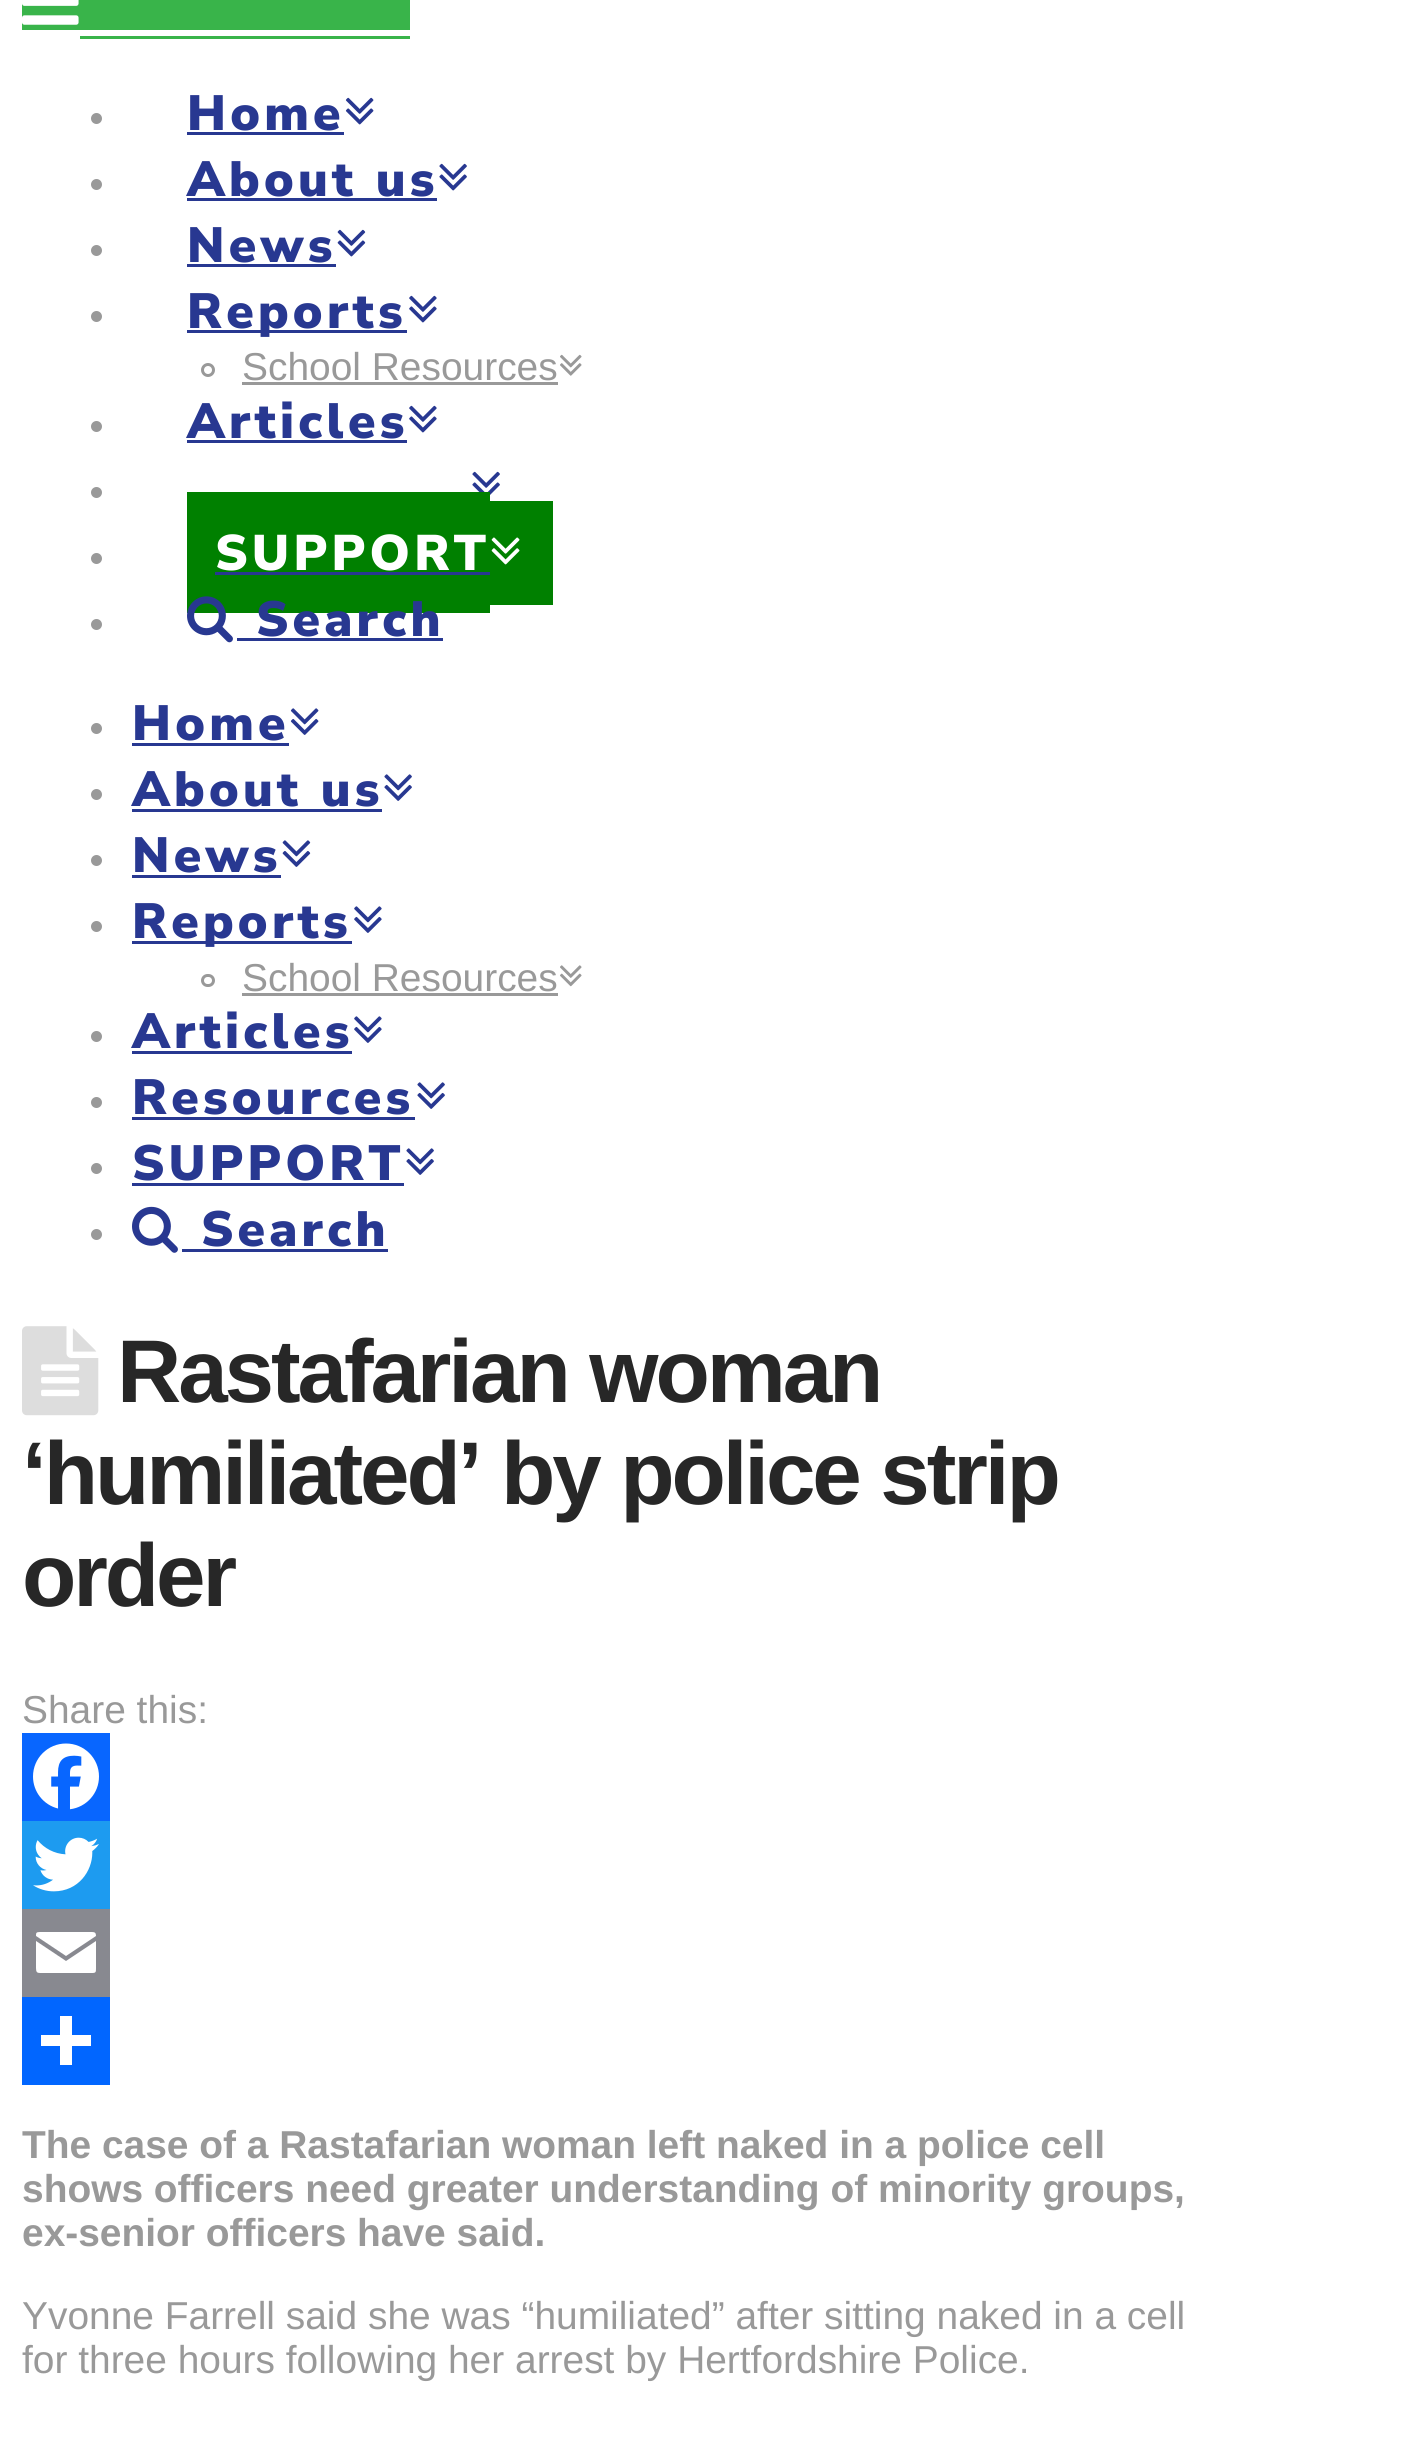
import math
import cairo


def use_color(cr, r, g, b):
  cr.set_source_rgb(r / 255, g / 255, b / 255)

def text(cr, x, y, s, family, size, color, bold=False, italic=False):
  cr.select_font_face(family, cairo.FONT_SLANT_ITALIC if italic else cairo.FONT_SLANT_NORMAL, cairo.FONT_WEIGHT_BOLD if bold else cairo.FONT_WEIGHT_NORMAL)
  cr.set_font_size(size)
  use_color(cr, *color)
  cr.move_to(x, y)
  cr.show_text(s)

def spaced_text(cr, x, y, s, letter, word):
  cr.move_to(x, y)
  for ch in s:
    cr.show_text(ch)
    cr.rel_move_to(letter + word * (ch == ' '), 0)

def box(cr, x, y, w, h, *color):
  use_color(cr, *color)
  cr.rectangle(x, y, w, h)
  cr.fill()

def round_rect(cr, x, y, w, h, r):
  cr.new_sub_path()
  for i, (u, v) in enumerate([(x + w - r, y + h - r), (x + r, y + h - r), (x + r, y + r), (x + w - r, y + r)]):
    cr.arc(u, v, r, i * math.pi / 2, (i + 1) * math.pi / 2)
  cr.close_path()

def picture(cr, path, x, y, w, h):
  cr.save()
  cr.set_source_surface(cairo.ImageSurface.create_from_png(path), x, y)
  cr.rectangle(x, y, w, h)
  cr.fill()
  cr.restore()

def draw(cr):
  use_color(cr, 255, 255, 255)
  cr.paint()
  box(cr, 22, 0, 58, 30, 57, 180, 74)
  box(cr, 80, 0, 330, 39, 57, 180, 74)
  picture(cr, "img_01.png", 22, 0, 57, 25)
  box(cr, 80, 30, 330, 6, 255, 255, 255)
  use_color(cr, 153, 153, 153)
  cr.arc(96.5, 118.5, 5.5, 0, 2 * math.pi)
  cr.fill()
  box(cr, 187, 132, 157, 3, 40, 56, 145)
  picture(cr, "img_02.png", 345, 97, 29, 28)
  use_color(cr, 153, 153, 153)
  cr.arc(96.5, 184.5, 5.5, 0, 2 * math.pi)
  cr.fill()
  box(cr, 187, 198, 250, 3, 40, 56, 145)
  picture(cr, "img_03.png", 439, 163, 28, 28)
  use_color(cr, 153, 153, 153)
  cr.arc(96.5, 250.5, 5.5, 0, 2 * math.pi)
  cr.fill()
  box(cr, 187, 264, 149, 3, 40, 56, 145)
  picture(cr, "img_04.png", 337, 229, 29, 28)
  use_color(cr, 153, 153, 153)
  cr.arc(96.5, 316.5, 5.5, 0, 2 * math.pi)
  cr.fill()
  box(cr, 187, 330, 220, 3, 40, 56, 145)
  picture(cr, "img_05.png", 409, 295, 28, 28)
  cr.arc(208, 370, 5.5, 0, 2 * math.pi)
  use_color(cr, 153, 153, 153)
  cr.set_line_width(3)
  cr.stroke()
  box(cr, 242, 382, 316, 3, 153, 153, 153)
  picture(cr, "img_06.png", 560, 354, 22, 22)
  cr.arc(96.5, 426.5, 5.5, 0, 2 * math.pi)
  cr.fill()
  box(cr, 187, 440, 220, 3, 40, 56, 145)
  picture(cr, "img_05.png", 409, 405, 28, 28)
  use_color(cr, 153, 153, 153)
  cr.arc(96.5, 492.5, 5.5, 0, 2 * math.pi)
  cr.fill()
  picture(cr, "img_07.png", 472, 471, 28, 24)
  cr.arc(96.5, 558.5, 5.5, 0, 2 * math.pi)
  cr.fill()
  box(cr, 187, 492, 303, 121, 0, 128, 0)
  box(cr, 490, 501, 63, 104, 0, 128, 0)
  box(cr, 215, 572, 275, 3, 40, 56, 145)
  picture(cr, "img_08.png", 491, 537, 29, 28)
  use_color(cr, 153, 153, 153)
  cr.arc(96.5, 624.5, 5.5, 0, 2 * math.pi)
  cr.fill()
  picture(cr, "img_09.png", 187, 596, 46, 47)
  box(cr, 237, 638, 206, 3, 40, 56, 145)
  use_color(cr, 153, 153, 153)
  cr.arc(96.5, 728.5, 5.5, 0, 2 * math.pi)
  cr.fill()
  box(cr, 132, 743, 157, 3, 40, 56, 145)
  picture(cr, "img_10.png", 290, 708, 29, 27)
  use_color(cr, 153, 153, 153)
  cr.arc(96.5, 794.5, 5.5, 0, 2 * math.pi)
  cr.fill()
  box(cr, 132, 809, 250, 3, 40, 56, 145)
  picture(cr, "img_11.png", 384, 774, 28, 27)
  use_color(cr, 153, 153, 153)
  cr.arc(96.5, 860.5, 5.5, 0, 2 * math.pi)
  cr.fill()
  box(cr, 132, 875, 149, 3, 40, 56, 145)
  picture(cr, "img_12.png", 282, 840, 29, 27)
  use_color(cr, 153, 153, 153)
  cr.arc(96.5, 926.5, 5.5, 0, 2 * math.pi)
  cr.fill()
  box(cr, 132, 941, 220, 3, 40, 56, 145)
  picture(cr, "img_13.png", 354, 906, 28, 27)
  round_rect(cr, 202.5, 975.5, 11, 10, 5)
  use_color(cr, 153, 153, 153)
  cr.stroke()
  box(cr, 242, 993, 316, 3, 153, 153, 153)
  picture(cr, "img_14.png", 560, 965, 22, 22)
  cr.arc(96.5, 1036.5, 5.5, 0, 2 * math.pi)
  cr.fill()
  box(cr, 132, 1051, 220, 3, 40, 56, 145)
  picture(cr, "img_13.png", 354, 1016, 28, 27)
  use_color(cr, 153, 153, 153)
  cr.arc(96.5, 1102.5, 5.5, 0, 2 * math.pi)
  cr.fill()
  box(cr, 132, 1117, 283, 3, 40, 56, 145)
  picture(cr, "img_11.png", 417, 1082, 28, 27)
  use_color(cr, 153, 153, 153)
  cr.arc(96.5, 1168.5, 5.5, 0, 2 * math.pi)
  cr.fill()
  box(cr, 132, 1183, 272, 3, 40, 56, 145)
  picture(cr, "img_11.png", 406, 1148, 28, 27)
  use_color(cr, 153, 153, 153)
  cr.arc(96.5, 1234.5, 5.5, 0, 2 * math.pi)
  cr.fill()
  picture(cr, "img_15.png", 132, 1206, 46, 47)
  box(cr, 182, 1249, 206, 3, 40, 56, 145)
  picture(cr, "img_16.png", 22, 1326, 77, 90)
  box(cr, 22, 1733, 88, 88, 8, 102, 255)
  picture(cr, "img_17.png", 33, 1743, 66, 67)
  box(cr, 22, 1821, 88, 88, 29, 155, 240)
  picture(cr, "img_18.png", 33, 1837, 66, 55)
  box(cr, 22, 1909, 88, 88, 136, 137, 144)
  use_color(cr, 255, 255, 255)
  cr.new_path()
  cr.move_to(96, 1968)
  cr.line_to(96, 1941)
  cr.line_to(66, 1961)
  cr.line_to(36, 1941)
  cr.line_to(36, 1968)
  cr.curve_to(36, 1972, 37, 1973, 40, 1973)
  cr.line_to(92, 1973)
  cr.curve_to(96, 1973, 96, 1972, 96, 1968)
  cr.move_to(96, 1936)
  cr.curve_to(96, 1933, 95, 1932, 92, 1932)
  cr.line_to(40, 1932)
  cr.curve_to(36, 1932, 36, 1933, 36, 1936)
  cr.line_to(66, 1956)
  cr.close_path()
  cr.fill()
  box(cr, 22, 1997, 88, 88, 1, 102, 255)
  box(cr, 60, 2016, 12, 49, 255, 255, 255)
  box(cr, 41, 2035, 50, 11, 255, 255, 255)
  cr.select_font_face("Nunito Sans Black")
  cr.set_font_size(49.5)
  use_color(cr, 40, 56, 145)
  spaced_text(cr, 187, 130, "Home", 4.25, 0)
  spaced_text(cr, 187, 196, "About us", 4.25, 0)
  spaced_text(cr, 187, 262, "News", 4.25, 0)
  spaced_text(cr, 187, 328, "Reports", 4.25, 0)
  text(cr, 242, 380, "School Resources", "Liberation Sans", 38.9, (153, 153, 153))
  cr.select_font_face("Nunito Sans Black")
  cr.set_font_size(49.5)
  use_color(cr, 40, 56, 145)
  spaced_text(cr, 187, 438, "Articles", 4.25, 0)
  cr.set_font_size(50)
  use_color(cr, 255, 255, 255)
  spaced_text(cr, 215, 570, "SUPPORT", 4.25, 0)
  cr.set_font_size(49.5)
  use_color(cr, 40, 56, 145)
  spaced_text(cr, 256, 636, "Search", 4.25, 0)
  spaced_text(cr, 132, 740, "Home", 4.25, 0)
  spaced_text(cr, 132, 806, "About us", 4.25, 0)
  spaced_text(cr, 132, 872, "News", 4.25, 0)
  spaced_text(cr, 132, 938, "Reports", 4.25, 0)
  text(cr, 242, 991, "School Resources", "Liberation Sans", 38.9, (153, 153, 153))
  cr.select_font_face("Nunito Sans Black")
  cr.set_font_size(49.5)
  use_color(cr, 40, 56, 145)
  spaced_text(cr, 132, 1048, "Articles", 4.25, 0)
  spaced_text(cr, 132, 1114, "Resources", 4.25, 0)
  spaced_text(cr, 132, 1180, "SUPPORT", 4.25, 0)
  spaced_text(cr, 201, 1246, "Search", 4.25, 0)
  cr.select_font_face("Liberation Sans", cairo.FONT_SLANT_NORMAL, cairo.FONT_WEIGHT_BOLD)
  cr.set_font_size(89)
  use_color(cr, 39, 39, 39)
  spaced_text(cr, 117, 1402, "Rastafarian woman", -3.1, 0)
  spaced_text(cr, 22, 1504, "‘humiliated’ by police strip", -3.1, 0)
  spaced_text(cr, 22, 1606, "order", -3.1, 0)
  text(cr, 22, 1723, "Share this:", "Liberation Sans", 38.9, (153, 153, 153))
  text(cr, 22, 2158, "The case of a Rastafarian woman left naked in a police cell", "Liberation Sans", 38.9, (153, 153, 153), bold=True)
  text(cr, 22, 2202, "shows officers need greater understanding of minority groups,", "Liberation Sans", 38.9, (153, 153, 153), bold=True)
  text(cr, 22, 2246, "ex-senior officers have said.", "Liberation Sans", 38.9, (153, 153, 153), bold=True)
  text(cr, 22, 2329, "Yvonne Farrell said she was “humiliated” after sitting naked in a cell", "Liberation Sans", 38.9, (153, 153, 153))
  text(cr, 22, 2373, "for three hours following her arrest by Hertfordshire Police.", "Liberation Sans", 38.9, (153, 153, 153))


surface = cairo.ImageSurface(cairo.FORMAT_RGB24, 1421, 2442)
cr = cairo.Context(surface)
options = cairo.FontOptions()
options.set_hint_metrics(cairo.HINT_METRICS_OFF)
options.set_hint_style(cairo.HINT_STYLE_NONE)
cr.set_font_options(options)
cr.set_miter_limit(4)
draw(cr)
surface.write_to_png("out.png")
